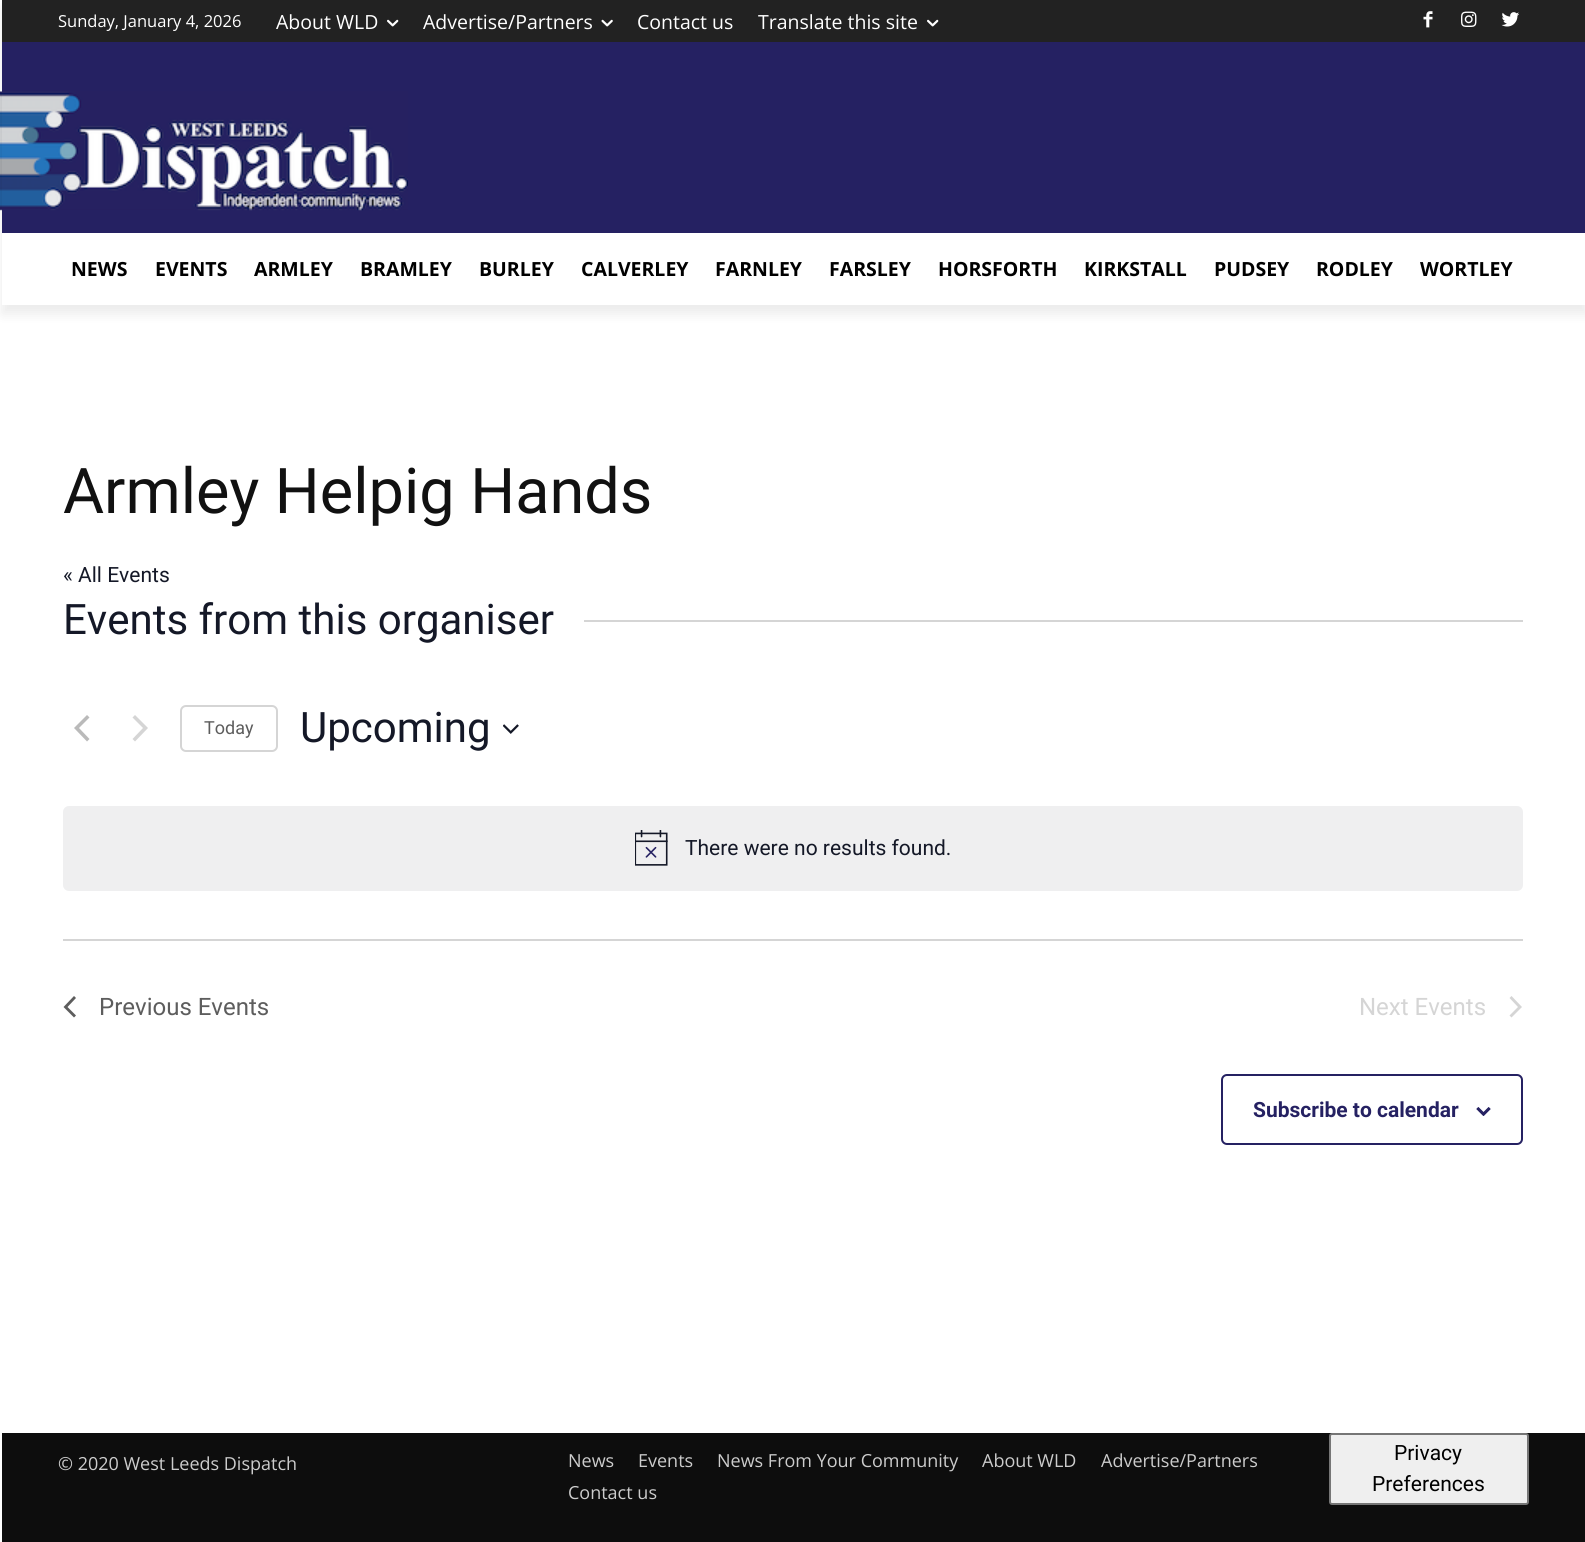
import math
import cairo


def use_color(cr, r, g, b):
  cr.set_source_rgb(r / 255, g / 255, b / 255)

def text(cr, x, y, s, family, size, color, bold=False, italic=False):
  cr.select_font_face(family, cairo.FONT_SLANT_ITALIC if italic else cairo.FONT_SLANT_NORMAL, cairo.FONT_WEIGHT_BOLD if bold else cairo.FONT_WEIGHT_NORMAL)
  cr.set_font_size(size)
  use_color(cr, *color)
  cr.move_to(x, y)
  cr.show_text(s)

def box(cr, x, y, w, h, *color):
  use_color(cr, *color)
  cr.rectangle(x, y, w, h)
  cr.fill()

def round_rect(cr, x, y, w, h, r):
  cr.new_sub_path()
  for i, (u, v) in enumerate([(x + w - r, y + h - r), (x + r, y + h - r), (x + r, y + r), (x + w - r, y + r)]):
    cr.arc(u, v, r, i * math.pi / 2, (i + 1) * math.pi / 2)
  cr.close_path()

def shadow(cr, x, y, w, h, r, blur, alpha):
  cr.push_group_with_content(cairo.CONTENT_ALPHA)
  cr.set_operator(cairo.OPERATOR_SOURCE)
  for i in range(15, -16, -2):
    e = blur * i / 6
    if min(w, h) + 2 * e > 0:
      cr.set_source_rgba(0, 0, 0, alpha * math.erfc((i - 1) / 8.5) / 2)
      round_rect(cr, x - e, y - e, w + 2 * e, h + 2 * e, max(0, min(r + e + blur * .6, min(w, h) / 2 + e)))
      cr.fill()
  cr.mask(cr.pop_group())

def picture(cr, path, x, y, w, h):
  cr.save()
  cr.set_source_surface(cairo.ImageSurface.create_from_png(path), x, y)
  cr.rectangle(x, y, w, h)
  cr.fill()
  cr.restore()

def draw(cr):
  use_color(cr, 255, 255, 255)
  cr.paint()
  box(cr, 2, 42, 1583, 191, 37, 33, 98)
  picture(cr, "img_06.png", 0, 91, 408, 120)
  cr.save()
  cr.set_fill_rule(cairo.FILL_RULE_EVEN_ODD)
  cr.new_path()
  cr.move_to(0, 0)
  cr.line_to(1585, 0)
  cr.line_to(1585, 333)
  cr.line_to(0, 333)
  cr.close_path()
  cr.move_to(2, 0)
  cr.line_to(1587, 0)
  cr.line_to(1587, 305)
  cr.line_to(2, 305)
  cr.close_path()
  cr.clip()
  use_color(cr, 0, 0, 0)
  shadow(cr, 2, 9, 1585, 305, 0, 6, 0.08)
  cr.restore()
  box(cr, 2, 0, 1583, 42, 34, 34, 34)
  picture(cr, "img_01.png", 387, 19, 12, 8)
  picture(cr, "img_02.png", 601, 19, 12, 8)
  picture(cr, "img_01.png", 927, 19, 12, 8)
  picture(cr, "img_03.png", 1423, 11, 10, 17)
  picture(cr, "img_04.png", 1461, 11, 16, 16)
  picture(cr, "img_05.png", 1501, 12, 18, 15)
  box(cr, 584, 620, 939, 2, 213, 213, 213)
  use_color(cr, 186, 186, 186)
  cr.new_path()
  cr.move_to(89.5, 739)
  cr.line_to(87, 741.5)
  cr.line_to(74, 728)
  cr.line_to(87, 715)
  cr.line_to(89.5, 717.5)
  cr.line_to(79, 728)
  cr.close_path()
  cr.fill()
  use_color(cr, 213, 213, 213)
  cr.new_path()
  cr.move_to(132.5, 717.5)
  cr.line_to(135, 715)
  cr.line_to(148, 728)
  cr.line_to(135, 741.5)
  cr.line_to(132.5, 739)
  cr.line_to(143, 728)
  cr.close_path()
  cr.fill()
  round_rect(cr, 181, 706, 96, 45, 5)
  cr.stroke()
  picture(cr, "img_07.png", 503, 724, 16, 10)
  use_color(cr, 239, 239, 240)
  round_rect(cr, 63, 806, 1460, 85, 6)
  cr.fill()
  picture(cr, "img_08.png", 635, 830, 33, 36)
  box(cr, 63, 939, 1460, 2, 213, 213, 213)
  use_color(cr, 93, 93, 93)
  cr.new_path()
  cr.move_to(76, 1015.5)
  cr.line_to(74, 1017.5)
  cr.line_to(63.5, 1007)
  cr.line_to(74, 996)
  cr.line_to(76, 998)
  cr.line_to(67.5, 1007)
  cr.close_path()
  cr.fill()
  use_color(cr, 213, 213, 213)
  cr.new_path()
  cr.move_to(1509.5, 998)
  cr.line_to(1511.5, 996)
  cr.line_to(1522, 1007)
  cr.line_to(1511.5, 1017.5)
  cr.line_to(1509.5, 1015.5)
  cr.line_to(1518, 1007)
  cr.close_path()
  cr.fill()
  round_rect(cr, 1222, 1075, 300, 69, 5)
  use_color(cr, 37, 33, 98)
  cr.stroke()
  picture(cr, "img_09.png", 1476, 1107, 15, 9)
  box(cr, 2, 1433, 1583, 109, 13, 13, 13)
  use_color(cr, 239, 239, 239)
  round_rect(cr, 1330, 1434, 198, 70, 2)
  cr.fill_preserve()
  use_color(cr, 118, 118, 118)
  cr.stroke()
  text(cr, 58, 27, "Sunday, January 4, 2026", "Open Sans", 16.5, (255, 255, 255))
  text(cr, 276, 29, "About WLD", "Open Sans", 19.5, (255, 255, 255))
  text(cr, 423, 29, "Advertise/Partners", "Open Sans", 19.5, (255, 255, 255))
  text(cr, 637, 29, "Contact us", "Open Sans", 19.5, (255, 255, 255))
  text(cr, 758, 29, "Translate this site", "Open Sans", 19.5, (255, 255, 255))
  text(cr, 71, 276, "NEWS", "Open Sans", 19.5, (0, 0, 0), bold=True)
  text(cr, 155, 276, "EVENTS", "Open Sans", 19.5, (0, 0, 0), bold=True)
  text(cr, 254, 276, "ARMLEY", "Open Sans", 19.5, (0, 0, 0), bold=True)
  text(cr, 360, 276, "BRAMLEY", "Open Sans", 19.5, (0, 0, 0), bold=True)
  text(cr, 479, 276, "BURLEY", "Open Sans", 19.5, (0, 0, 0), bold=True)
  text(cr, 581, 276, "CALVERLEY", "Open Sans", 19.5, (0, 0, 0), bold=True)
  text(cr, 715, 276, "FARNLEY", "Open Sans", 19.5, (0, 0, 0), bold=True)
  text(cr, 829, 276, "FARSLEY", "Open Sans", 19.5, (0, 0, 0), bold=True)
  text(cr, 938, 276, "HORSFORTH", "Open Sans", 19.5, (0, 0, 0), bold=True)
  text(cr, 1084, 276, "KIRKSTALL", "Open Sans", 19.5, (0, 0, 0), bold=True)
  text(cr, 1214, 276, "PUDSEY", "Open Sans", 19.5, (0, 0, 0), bold=True)
  text(cr, 1316, 276, "RODLEY", "Open Sans", 19.5, (0, 0, 0), bold=True)
  text(cr, 1420, 276, "WORTLEY", "Open Sans", 19.5, (0, 0, 0), bold=True)
  text(cr, 63, 513, "Armley Helpig Hands", "Roboto", 63, (17, 17, 17))
  text(cr, 63, 582, "« All Events", "Roboto", 21, (20, 24, 39))
  text(cr, 63, 634, "Events from this organiser", "Roboto", 42, (20, 24, 39))
  text(cr, 204, 734, "Today", "Roboto", 18, (93, 93, 93))
  text(cr, 300, 742, "Upcoming", "Roboto", 42, (20, 24, 39))
  text(cr, 685, 855, "There were no results found.", "Roboto", 21, (20, 24, 39))
  text(cr, 99, 1015, "Previous Events", "Roboto", 24, (93, 93, 93))
  text(cr, 1359, 1015, "Next Events", "Roboto", 24, (213, 213, 213))
  text(cr, 1253, 1117, "Subscribe to calendar", "Roboto", 21, (37, 33, 98), bold=True)
  text(cr, 58, 1470, "© 2020 West Leeds Dispatch", "Open Sans", 18, (204, 204, 204))
  text(cr, 568, 1467, "News", "Open Sans", 18, (204, 204, 204))
  text(cr, 638, 1467, "Events", "Open Sans", 18, (204, 204, 204))
  text(cr, 717, 1467, "News From Your Community", "Open Sans", 18, (204, 204, 204))
  text(cr, 982, 1467, "About WLD", "Open Sans", 18, (204, 204, 204))
  text(cr, 1101, 1467, "Advertise/Partners", "Open Sans", 18, (204, 204, 204))
  cr.save()
  cr.rectangle(569, 1433, 760, 87)
  cr.clip()
  text(cr, 568, 1499, "Contact us", "Open Sans", 18, (204, 204, 204))
  cr.restore()
  text(cr, 1394, 1460, "Privacy", "Roboto", 21, (0, 0, 0))
  text(cr, 1372, 1491, "Preferences", "Roboto", 21, (0, 0, 0))


surface = cairo.ImageSurface(cairo.FORMAT_RGB24, 1585, 1542)
cr = cairo.Context(surface)
options = cairo.FontOptions()
options.set_hint_metrics(cairo.HINT_METRICS_OFF)
options.set_hint_style(cairo.HINT_STYLE_NONE)
cr.set_font_options(options)
cr.set_miter_limit(4)
draw(cr)
surface.write_to_png("out.png")
